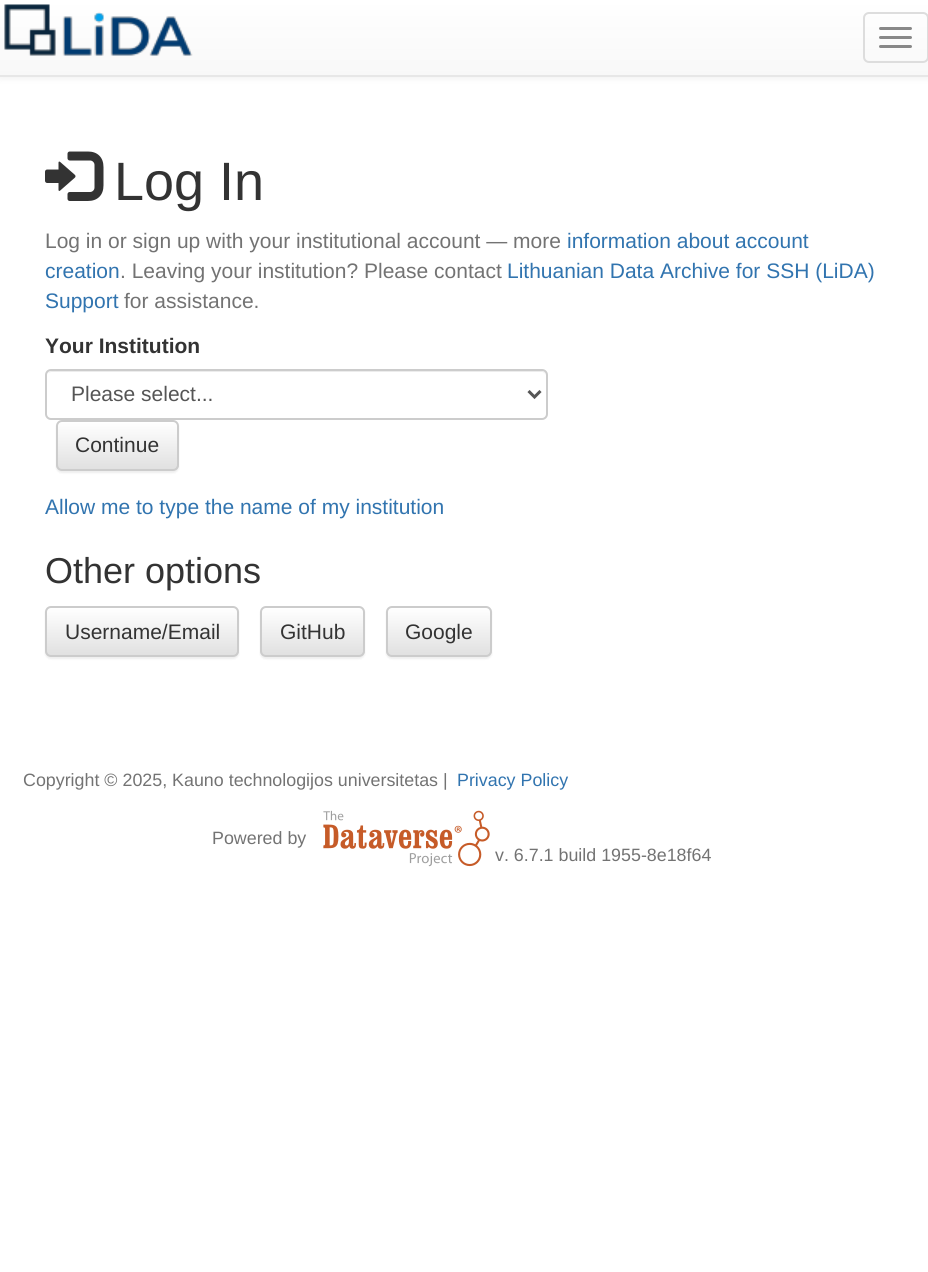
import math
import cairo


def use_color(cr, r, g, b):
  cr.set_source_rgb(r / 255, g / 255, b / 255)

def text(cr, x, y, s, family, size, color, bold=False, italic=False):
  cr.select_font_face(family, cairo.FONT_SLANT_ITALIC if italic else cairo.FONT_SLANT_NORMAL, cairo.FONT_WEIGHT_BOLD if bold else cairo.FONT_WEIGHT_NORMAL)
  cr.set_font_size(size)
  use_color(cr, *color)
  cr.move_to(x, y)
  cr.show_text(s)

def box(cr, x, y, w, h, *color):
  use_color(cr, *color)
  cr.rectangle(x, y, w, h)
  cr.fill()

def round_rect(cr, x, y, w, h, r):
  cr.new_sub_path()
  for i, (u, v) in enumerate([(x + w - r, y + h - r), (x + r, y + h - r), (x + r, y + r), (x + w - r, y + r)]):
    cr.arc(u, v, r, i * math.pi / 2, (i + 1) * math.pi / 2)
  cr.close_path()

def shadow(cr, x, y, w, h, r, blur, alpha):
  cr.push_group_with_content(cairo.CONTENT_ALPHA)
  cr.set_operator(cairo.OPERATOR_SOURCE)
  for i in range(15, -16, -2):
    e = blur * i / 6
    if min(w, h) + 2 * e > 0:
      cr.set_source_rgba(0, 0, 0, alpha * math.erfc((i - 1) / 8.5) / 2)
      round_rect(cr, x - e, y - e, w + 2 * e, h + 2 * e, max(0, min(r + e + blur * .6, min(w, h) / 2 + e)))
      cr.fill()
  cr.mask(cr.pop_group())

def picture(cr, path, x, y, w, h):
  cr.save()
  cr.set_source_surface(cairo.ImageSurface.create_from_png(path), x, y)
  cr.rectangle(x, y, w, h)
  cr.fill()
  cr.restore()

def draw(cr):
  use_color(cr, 255, 255, 255)
  cr.paint()
  use_color(cr, 0, 0, 0)
  shadow(cr, 0, 2, 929, 76, 0, 4, 0.07)
  gradient = cairo.LinearGradient(464, 0, 464, 75)
  gradient.add_color_stop_rgba(0, 1, 1, 1, 1)
  gradient.add_color_stop_rgba(1, 0.973, 0.973, 0.973, 1)
  cr.set_source(gradient)
  cr.rectangle(0, 0, 928, 75)
  cr.fill()
  box(cr, 0, 75, 928, 2, 231, 231, 231)
  picture(cr, "img_01.png", 4, 4, 189, 52)
  round_rect(cr, 864, 13, 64, 49, 5)
  use_color(cr, 221, 221, 221)
  cr.stroke()
  use_color(cr, 136, 136, 136)
  round_rect(cr, 879, 27, 33, 3, 1.5)
  cr.fill()
  round_rect(cr, 879, 36, 33, 3, 1.5)
  cr.fill()
  round_rect(cr, 879, 45, 33, 3, 1.5)
  cr.fill()
  picture(cr, "img_02.png", 45, 151, 59, 50)
  use_color(cr, 236, 236, 236)
  cr.new_path()
  cr.move_to(51, 372)
  cr.line_to(542, 372)
  cr.curve_to(544, 372, 546, 374, 546, 376)
  cr.curve_to(546, 373, 544, 371, 541, 371)
  cr.line_to(52, 371)
  cr.curve_to(50, 371, 49, 372, 48, 373)
  cr.close_path()
  cr.fill()
  round_rect(cr, 46, 370, 501, 49, 5)
  use_color(cr, 204, 204, 204)
  cr.stroke()
  cr.new_path()
  cr.move_to(528.5, 391)
  cr.line_to(534.5, 397)
  cr.line_to(540.5, 391)
  use_color(cr, 85, 85, 85)
  cr.set_line_width(3)
  cr.stroke()
  use_color(cr, 0, 0, 0)
  shadow(cr, 56, 422, 123, 51, 6, 1, 0.07)
  cr.save()
  round_rect(cr, 56, 420, 123, 51, 6)
  cr.clip()
  gradient = cairo.LinearGradient(117, 422, 117, 470)
  gradient.add_color_stop_rgba(0, 1, 1, 1, 1)
  gradient.add_color_stop_rgba(1, 0.878, 0.878, 0.878, 1)
  cr.set_source(gradient)
  cr.rectangle(56, 422, 123, 48)
  cr.fill()
  cr.restore()
  round_rect(cr, 57, 421, 121, 49, 5)
  use_color(cr, 204, 204, 204)
  cr.set_line_width(2)
  cr.stroke()
  use_color(cr, 0, 0, 0)
  shadow(cr, 45, 608, 194, 51, 6, 1, 0.07)
  cr.save()
  round_rect(cr, 45, 606, 194, 51, 6)
  cr.clip()
  gradient = cairo.LinearGradient(142, 608, 142, 656)
  gradient.add_color_stop_rgba(0, 1, 1, 1, 1)
  gradient.add_color_stop_rgba(1, 0.878, 0.878, 0.878, 1)
  cr.set_source(gradient)
  cr.rectangle(45, 608, 194, 48)
  cr.fill()
  cr.restore()
  round_rect(cr, 46, 607, 192, 49, 5)
  use_color(cr, 204, 204, 204)
  cr.stroke()
  use_color(cr, 0, 0, 0)
  shadow(cr, 260, 608, 105, 51, 6, 1, 0.07)
  cr.save()
  round_rect(cr, 260, 606, 105, 51, 6)
  cr.clip()
  gradient = cairo.LinearGradient(312, 608, 312, 656)
  gradient.add_color_stop_rgba(0, 1, 1, 1, 1)
  gradient.add_color_stop_rgba(1, 0.878, 0.878, 0.878, 1)
  cr.set_source(gradient)
  cr.rectangle(260, 608, 105, 48)
  cr.fill()
  cr.restore()
  round_rect(cr, 261, 607, 103, 49, 5)
  use_color(cr, 204, 204, 204)
  cr.stroke()
  use_color(cr, 0, 0, 0)
  shadow(cr, 386, 608, 106, 51, 6, 1, 0.07)
  cr.save()
  round_rect(cr, 386, 606, 106, 51, 6)
  cr.clip()
  gradient = cairo.LinearGradient(439, 608, 439, 656)
  gradient.add_color_stop_rgba(0, 1, 1, 1, 1)
  gradient.add_color_stop_rgba(1, 0.878, 0.878, 0.878, 1)
  cr.set_source(gradient)
  cr.rectangle(386, 608, 106, 48)
  cr.fill()
  cr.restore()
  cr.set_source_rgba(1, 1, 1, 0.15)
  cr.new_path()
  cr.move_to(392, 609)
  cr.line_to(486, 609)
  cr.curve_to(488, 609, 490, 611, 490, 614)
  cr.line_to(490, 652)
  cr.line_to(489, 655)
  cr.curve_to(490, 654, 491, 652, 491, 651)
  cr.line_to(491, 613)
  cr.curve_to(491, 610, 489, 608, 486, 608)
  cr.line_to(392, 608)
  cr.curve_to(389, 608, 387, 610, 387, 613)
  cr.line_to(387, 614)
  cr.curve_to(387, 611, 389, 609, 392, 609)
  cr.close_path()
  cr.fill()
  round_rect(cr, 387, 607, 104, 49, 5)
  use_color(cr, 204, 204, 204)
  cr.stroke()
  picture(cr, "img_03.png", 323, 810, 167, 57)
  text(cr, 114, 200, "Log In", "Liberation Sans", 54, (51, 51, 51))
  text(cr, 45, 248, "Log in or sign up with your institutional account — more", "Liberation Sans", 21, (115, 115, 115))
  text(cr, 567, 248, "information about account", "Liberation Sans", 21, (49, 116, 175))
  text(cr, 45, 278, "creation", "Liberation Sans", 21, (49, 116, 175))
  text(cr, 120, 278, ". Leaving your institution? Please contact", "Liberation Sans", 21, (115, 115, 115))
  text(cr, 507, 278, "Lithuanian Data Archive for SSH (LiDA)", "Liberation Sans", 21, (49, 116, 175))
  text(cr, 45, 308, "Support", "Liberation Sans", 21, (49, 116, 175))
  text(cr, 124, 308, "for assistance.", "Liberation Sans", 21, (115, 115, 115))
  text(cr, 45, 353, "Your Institution", "Liberation Sans", 21, (51, 51, 51), bold=True)
  text(cr, 71, 401, "Please select...", "Liberation Sans", 21, (85, 85, 85))
  text(cr, 75, 452, "Continue", "Liberation Sans", 21, (51, 51, 51))
  text(cr, 45, 514, "Allow me to type the name of my institution", "Liberation Sans", 21, (49, 116, 175))
  text(cr, 45, 583, "Other options", "Liberation Sans", 36, (51, 51, 51))
  text(cr, 65, 639, "Username/Email", "Liberation Sans", 21, (51, 51, 51))
  text(cr, 280, 639, "GitHub", "Liberation Sans", 21, (51, 51, 51))
  text(cr, 405, 639, "Google", "Liberation Sans", 21, (51, 51, 51))
  text(cr, 23, 786, "Copyright © 2025, Kauno technologijos universitetas |", "Liberation Sans", 17.85, (115, 115, 115))
  text(cr, 457, 786, "Privacy Policy", "Liberation Sans", 17.85, (49, 116, 175))
  text(cr, 212, 844, "Powered by", "Liberation Sans", 17.85, (115, 115, 115))
  text(cr, 495, 861, "v. 6.7.1 build 1955-8e18f64", "Liberation Sans", 17.85, (115, 115, 115))


surface = cairo.ImageSurface(cairo.FORMAT_RGB24, 928, 1272)
cr = cairo.Context(surface)
options = cairo.FontOptions()
options.set_hint_metrics(cairo.HINT_METRICS_OFF)
options.set_hint_style(cairo.HINT_STYLE_NONE)
cr.set_font_options(options)
cr.set_miter_limit(4)
draw(cr)
surface.write_to_png("out.png")
